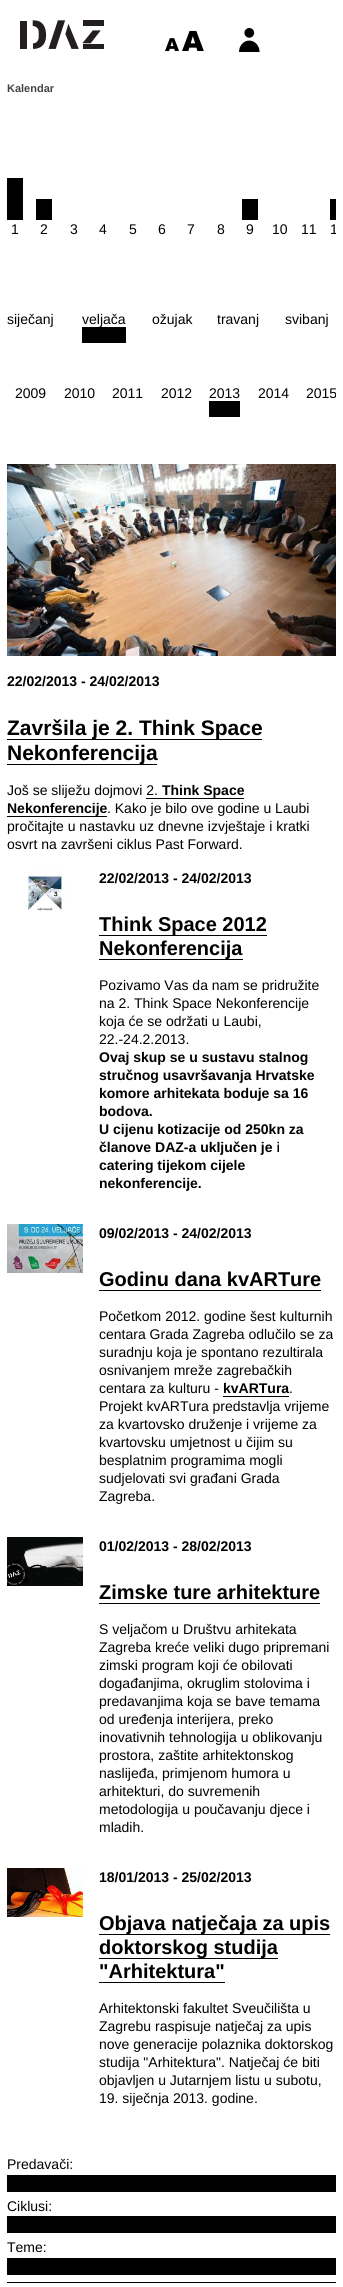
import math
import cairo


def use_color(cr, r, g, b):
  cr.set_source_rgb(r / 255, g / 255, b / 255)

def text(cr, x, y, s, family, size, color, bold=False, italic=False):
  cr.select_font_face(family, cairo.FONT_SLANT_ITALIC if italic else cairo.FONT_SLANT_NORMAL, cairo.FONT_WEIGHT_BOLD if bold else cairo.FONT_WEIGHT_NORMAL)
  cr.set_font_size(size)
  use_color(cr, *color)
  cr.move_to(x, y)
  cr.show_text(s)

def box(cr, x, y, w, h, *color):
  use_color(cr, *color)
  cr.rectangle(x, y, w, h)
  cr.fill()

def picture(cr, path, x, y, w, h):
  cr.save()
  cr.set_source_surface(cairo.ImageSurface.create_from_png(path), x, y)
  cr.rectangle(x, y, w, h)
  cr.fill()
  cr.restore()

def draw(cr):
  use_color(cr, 255, 255, 255)
  cr.paint()
  picture(cr, "img_01.png", 20, 20, 84, 29)
  picture(cr, "img_02.png", 165, 30, 39, 21)
  picture(cr, "img_03.png", 239, 28, 21, 24)
  box(cr, 7, 178, 16, 42, 0, 0, 0)
  box(cr, 36, 199, 16, 21, 0, 0, 0)
  box(cr, 242, 199, 16, 21, 0, 0, 0)
  box(cr, 330, 199, 6, 21, 0, 0, 0)
  box(cr, 82, 327, 44, 16, 0, 0, 0)
  box(cr, 209, 401, 31, 16, 0, 0, 0)
  picture(cr, "img_04.png", 7, 464, 329, 192)
  box(cr, 7, 739, 255, 1, 0, 0, 0)
  box(cr, 7, 764, 150, 1, 0, 0, 0)
  box(cr, 146, 798, 98, 1, 0, 0, 0)
  box(cr, 7, 816, 100, 1, 0, 0, 0)
  picture(cr, "img_05.png", 7, 869, 76, 49)
  box(cr, 99, 935, 168, 1, 0, 0, 0)
  box(cr, 99, 959, 144, 1, 0, 0, 0)
  picture(cr, "img_06.png", 7, 1224, 76, 49)
  box(cr, 99, 1290, 222, 1, 0, 0, 0)
  box(cr, 223, 1396, 66, 1, 0, 0, 0)
  picture(cr, "img_07.png", 7, 1537, 76, 49)
  box(cr, 99, 1603, 221, 1, 0, 0, 0)
  picture(cr, "img_08.png", 7, 1868, 76, 49)
  box(cr, 99, 1934, 231, 1, 0, 0, 0)
  box(cr, 99, 1958, 179, 1, 0, 0, 0)
  box(cr, 99, 1982, 126, 1, 0, 0, 0)
  box(cr, 7, 2175, 329, 17, 0, 0, 0)
  box(cr, 7, 2216, 329, 17, 0, 0, 0)
  box(cr, 7, 2258, 329, 17, 0, 0, 0)
  box(cr, 7, 2282, 329, 1, 0, 0, 0)
  text(cr, 7, 92, "Kalendar", "Liberation Sans", 11, (68, 68, 68), bold=True)
  text(cr, 11, 234, "1", "Liberation Sans", 14, (0, 0, 0))
  text(cr, 40, 234, "2", "Liberation Sans", 14, (0, 0, 0))
  text(cr, 70, 234, "3", "Liberation Sans", 14, (0, 0, 0))
  text(cr, 99, 234, "4", "Liberation Sans", 14, (0, 0, 0))
  text(cr, 129, 234, "5", "Liberation Sans", 14, (0, 0, 0))
  text(cr, 158, 234, "6", "Liberation Sans", 14, (0, 0, 0))
  text(cr, 187, 234, "7", "Liberation Sans", 14, (0, 0, 0))
  text(cr, 217, 234, "8", "Liberation Sans", 14, (0, 0, 0))
  text(cr, 246, 234, "9", "Liberation Sans", 14, (0, 0, 0))
  text(cr, 272, 234, "10", "Liberation Sans", 14, (0, 0, 0))
  text(cr, 301, 234, "11", "Liberation Sans", 14, (0, 0, 0))
  cr.save()
  cr.rectangle(7, 100, 329, 180)
  cr.clip()
  text(cr, 330, 234, "1", "Liberation Sans", 14, (0, 0, 0))
  cr.restore()
  text(cr, 7, 324, "siječanj", "Liberation Sans", 14, (0, 0, 0))
  text(cr, 82, 324, "veljača", "Liberation Sans", 14, (0, 0, 0))
  text(cr, 152, 324, "ožujak", "Liberation Sans", 14, (0, 0, 0))
  text(cr, 217, 324, "travanj", "Liberation Sans", 14, (0, 0, 0))
  text(cr, 285, 324, "svibanj", "Liberation Sans", 14, (0, 0, 0))
  text(cr, 15, 398, "2009", "Liberation Sans", 14, (0, 0, 0))
  text(cr, 64, 398, "2010", "Liberation Sans", 14, (0, 0, 0))
  text(cr, 112, 398, "2011", "Liberation Sans", 14, (0, 0, 0))
  text(cr, 161, 398, "2012", "Liberation Sans", 14, (0, 0, 0))
  text(cr, 209, 398, "2013", "Liberation Sans", 14, (0, 0, 0))
  text(cr, 258, 398, "2014", "Liberation Sans", 14, (0, 0, 0))
  cr.save()
  cr.rectangle(7, 374, 329, 70)
  cr.clip()
  text(cr, 306, 398, "2015", "Liberation Sans", 14, (0, 0, 0))
  cr.restore()
  text(cr, 7, 686, "22/02/2013 - 24/02/2013", "Liberation Sans", 14, (0, 0, 0), bold=True)
  text(cr, 7, 735, "Završila je 2. Think Space", "Liberation Sans", 21, (0, 0, 0), bold=True)
  text(cr, 7, 760, "Nekonferencija", "Liberation Sans", 21, (0, 0, 0), bold=True)
  text(cr, 7, 795, "Još se sliježu dojmovi 2.", "Liberation Sans", 14, (0, 0, 0))
  text(cr, 162, 795, "Think Space", "Liberation Sans", 14, (0, 0, 0), bold=True)
  text(cr, 7, 813, "Nekonferencije", "Liberation Sans", 14, (0, 0, 0), bold=True)
  text(cr, 107, 813, ". Kako je bilo ove godine u Laubi", "Liberation Sans", 14, (0, 0, 0))
  text(cr, 7, 831, "pročitajte u nastavku uz dnevne izvještaje i kratki", "Liberation Sans", 14, (0, 0, 0))
  text(cr, 7, 849, "osvrt na završeni ciklus Past Forward.", "Liberation Sans", 14, (0, 0, 0))
  text(cr, 99, 883, "22/02/2013 - 24/02/2013", "Liberation Sans", 14, (0, 0, 0), bold=True)
  text(cr, 99, 931, "Think Space 2012", "Liberation Sans", 20, (0, 0, 0), bold=True)
  text(cr, 99, 955, "Nekonferencija", "Liberation Sans", 20, (0, 0, 0), bold=True)
  text(cr, 99, 990, "Pozivamo Vas da nam se pridružite", "Liberation Sans", 14, (0, 0, 0))
  text(cr, 99, 1008, "na 2. Think Space Nekonferencije", "Liberation Sans", 14, (0, 0, 0))
  text(cr, 99, 1026, "koja će se održati u Laubi,", "Liberation Sans", 14, (0, 0, 0))
  text(cr, 99, 1044, "22.-24.2.2013.", "Liberation Sans", 14, (0, 0, 0))
  text(cr, 99, 1062, "Ovaj skup se u sustavu stalnog", "Liberation Sans", 14, (0, 0, 0), bold=True)
  text(cr, 99, 1080, "stručnog usavršavanja Hrvatske", "Liberation Sans", 14, (0, 0, 0), bold=True)
  text(cr, 99, 1098, "komore arhitekata boduje sa 16", "Liberation Sans", 14, (0, 0, 0), bold=True)
  text(cr, 99, 1116, "bodova.", "Liberation Sans", 14, (0, 0, 0), bold=True)
  text(cr, 99, 1134, "U cijenu kotizacije od 250kn za", "Liberation Sans", 14, (0, 0, 0), bold=True)
  text(cr, 99, 1152, "članove DAZ-a uključen je i", "Liberation Sans", 14, (0, 0, 0), bold=True)
  text(cr, 99, 1170, "catering tijekom cijele", "Liberation Sans", 14, (0, 0, 0), bold=True)
  text(cr, 99, 1188, "nekonferencije.", "Liberation Sans", 14, (0, 0, 0), bold=True)
  text(cr, 99, 1238, "09/02/2013 - 24/02/2013", "Liberation Sans", 14, (0, 0, 0), bold=True)
  text(cr, 99, 1286, "Godinu dana kvARTure", "Liberation Sans", 20, (0, 0, 0), bold=True)
  text(cr, 99, 1321, "Početkom 2012. godine šest kulturnih", "Liberation Sans", 14, (0, 0, 0))
  text(cr, 99, 1339, "centara Grada Zagreba odlučilo se za", "Liberation Sans", 14, (0, 0, 0))
  text(cr, 99, 1357, "suradnju koja je spontano rezultirala", "Liberation Sans", 14, (0, 0, 0))
  text(cr, 99, 1375, "osnivanjem mreže zagrebačkih", "Liberation Sans", 14, (0, 0, 0))
  text(cr, 99, 1393, "centara za kulturu -", "Liberation Sans", 14, (0, 0, 0))
  text(cr, 223, 1393, "kvARTura", "Liberation Sans", 14, (0, 0, 0), bold=True)
  text(cr, 289, 1393, ".", "Liberation Sans", 14, (0, 0, 0))
  text(cr, 99, 1411, "Projekt kvARTura predstavlja vrijeme", "Liberation Sans", 14, (0, 0, 0))
  text(cr, 99, 1429, "za kvartovsko druženje i vrijeme za", "Liberation Sans", 14, (0, 0, 0))
  text(cr, 99, 1447, "kvartovsku umjetnost u čijim su", "Liberation Sans", 14, (0, 0, 0))
  text(cr, 99, 1465, "besplatnim programima mogli", "Liberation Sans", 14, (0, 0, 0))
  text(cr, 99, 1483, "sudjelovati svi građani Grada", "Liberation Sans", 14, (0, 0, 0))
  text(cr, 99, 1501, "Zagreba.", "Liberation Sans", 14, (0, 0, 0))
  text(cr, 99, 1551, "01/02/2013 - 28/02/2013", "Liberation Sans", 14, (0, 0, 0), bold=True)
  text(cr, 99, 1599, "Zimske ture arhitekture", "Liberation Sans", 20, (0, 0, 0), bold=True)
  text(cr, 99, 1634, "S veljačom u Društvu arhitekata", "Liberation Sans", 14, (0, 0, 0))
  text(cr, 99, 1652, "Zagreba kreće veliki dugo pripremani", "Liberation Sans", 14, (0, 0, 0))
  text(cr, 99, 1670, "zimski program koji će obilovati", "Liberation Sans", 14, (0, 0, 0))
  text(cr, 99, 1688, "događanjima, okruglim stolovima i", "Liberation Sans", 14, (0, 0, 0))
  text(cr, 99, 1706, "predavanjima koja se bave temama", "Liberation Sans", 14, (0, 0, 0))
  text(cr, 99, 1724, "od uređenja interijera, preko", "Liberation Sans", 14, (0, 0, 0))
  text(cr, 99, 1742, "inovativnih tehnologija u oblikovanju", "Liberation Sans", 14, (0, 0, 0))
  text(cr, 99, 1760, "prostora, zaštite arhitektonskog", "Liberation Sans", 14, (0, 0, 0))
  text(cr, 99, 1778, "naslijeđa, primjenom humora u", "Liberation Sans", 14, (0, 0, 0))
  text(cr, 99, 1796, "arhitekturi, do suvremenih", "Liberation Sans", 14, (0, 0, 0))
  text(cr, 99, 1814, "metodologija u poučavanju djece i", "Liberation Sans", 14, (0, 0, 0))
  text(cr, 99, 1832, "mladih.", "Liberation Sans", 14, (0, 0, 0))
  text(cr, 99, 1882, "18/01/2013 - 25/02/2013", "Liberation Sans", 14, (0, 0, 0), bold=True)
  text(cr, 99, 1930, "Objava natječaja za upis", "Liberation Sans", 20, (0, 0, 0), bold=True)
  text(cr, 99, 1954, "doktorskog studija", "Liberation Sans", 20, (0, 0, 0), bold=True)
  text(cr, 99, 1978, "\"Arhitektura\"", "Liberation Sans", 20, (0, 0, 0), bold=True)
  text(cr, 99, 2013, "Arhitektonski fakultet Sveučilišta u", "Liberation Sans", 14, (0, 0, 0))
  text(cr, 99, 2031, "Zagrebu raspisuje natječaj za upis", "Liberation Sans", 14, (0, 0, 0))
  text(cr, 99, 2049, "nove generacije polaznika doktorskog", "Liberation Sans", 14, (0, 0, 0))
  text(cr, 99, 2067, "studija \"Arhitektura\". Natječaj će biti", "Liberation Sans", 14, (0, 0, 0))
  text(cr, 99, 2085, "objavljen u Jutarnjem listu u subotu,", "Liberation Sans", 14, (0, 0, 0))
  text(cr, 99, 2103, "19. siječnja 2013. godine.", "Liberation Sans", 14, (0, 0, 0))
  text(cr, 7, 2169, "Predavači:", "Liberation Sans", 14, (0, 0, 0))
  text(cr, 7, 2211, "Ciklusi:", "Liberation Sans", 14, (0, 0, 0))
  text(cr, 7, 2252, "Teme:", "Liberation Sans", 14, (0, 0, 0))


surface = cairo.ImageSurface(cairo.FORMAT_RGB24, 343, 2287)
cr = cairo.Context(surface)
options = cairo.FontOptions()
options.set_hint_metrics(cairo.HINT_METRICS_OFF)
options.set_hint_style(cairo.HINT_STYLE_NONE)
cr.set_font_options(options)
cr.set_miter_limit(4)
draw(cr)
surface.write_to_png("out.png")
